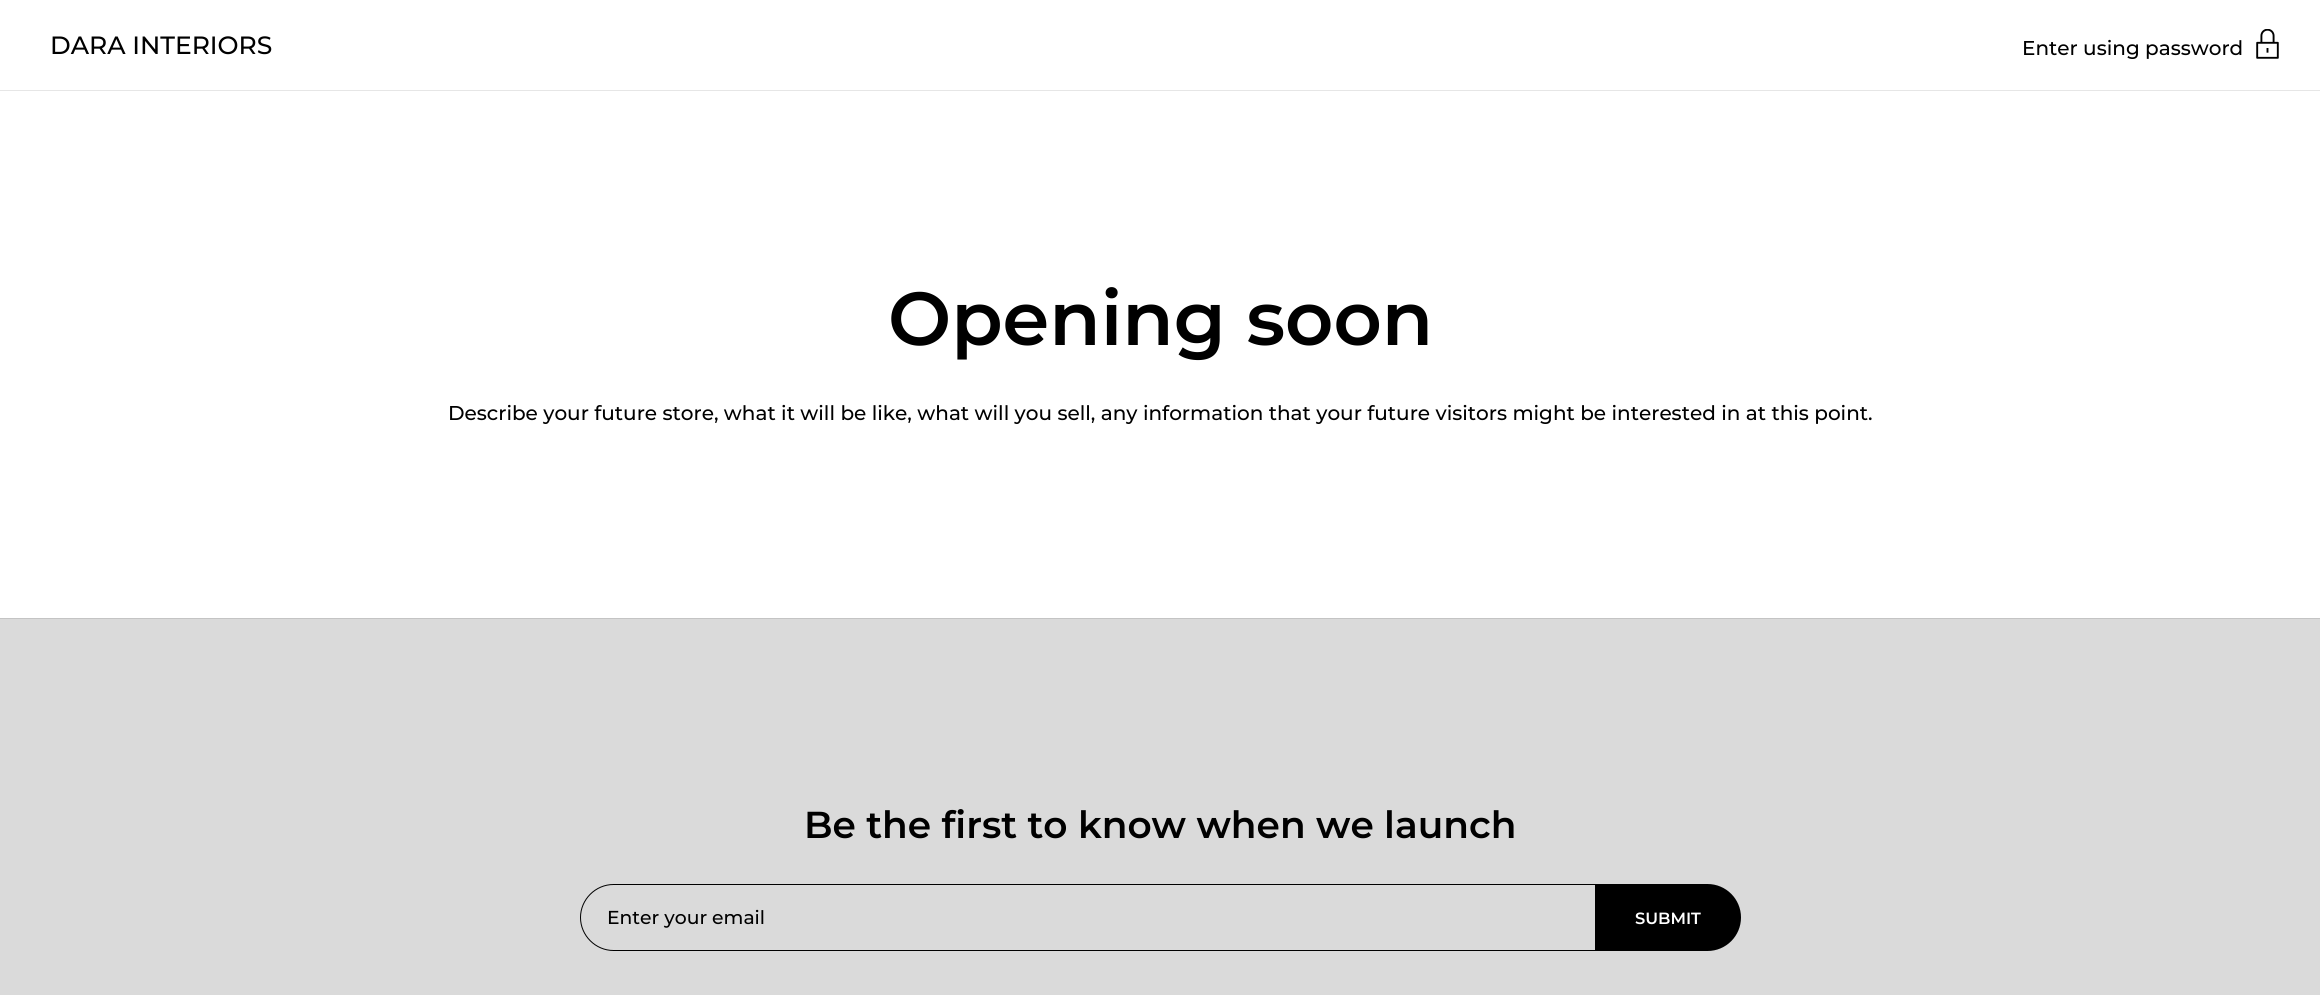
import math
import cairo


def use_color(cr, r, g, b):
  cr.set_source_rgb(r / 255, g / 255, b / 255)

def text(cr, x, y, s, family, size, color, bold=False, italic=False):
  cr.select_font_face(family, cairo.FONT_SLANT_ITALIC if italic else cairo.FONT_SLANT_NORMAL, cairo.FONT_WEIGHT_BOLD if bold else cairo.FONT_WEIGHT_NORMAL)
  cr.set_font_size(size)
  use_color(cr, *color)
  cr.move_to(x, y)
  cr.show_text(s)

def box(cr, x, y, w, h, *color):
  use_color(cr, *color)
  cr.rectangle(x, y, w, h)
  cr.fill()

def picture(cr, path, x, y, w, h):
  cr.save()
  cr.set_source_surface(cairo.ImageSurface.create_from_png(path), x, y)
  cr.rectangle(x, y, w, h)
  cr.fill()
  cr.restore()

def draw(cr):
  use_color(cr, 255, 255, 255)
  cr.paint()
  box(cr, 0, 90, 2320, 1, 230, 230, 230)
  picture(cr, "img_01.png", 2256, 29, 23, 30)
  box(cr, 0, 619, 2320, 376, 218, 218, 218)
  box(cr, 0, 618, 2320, 1, 196, 196, 196)
  cr.new_path()
  cr.move_to(613.5, 884.5)
  cr.line_to(1595.5, 884.5)
  cr.line_to(1595.5, 950.5)
  cr.line_to(613.5, 950.5)
  cr.curve_to(595.5, 950.5, 580.5, 935.5, 580.5, 917.5)
  cr.curve_to(580.5, 899.5, 595.5, 884.5, 613.5, 884.5)
  cr.close_path()
  use_color(cr, 0, 0, 0)
  cr.set_line_width(1)
  cr.stroke()
  cr.new_path()
  cr.move_to(1595, 884)
  cr.line_to(1707.5, 884)
  cr.curve_to(1726, 884, 1741, 899, 1741, 917.5)
  cr.curve_to(1741, 936, 1726, 951, 1707.5, 951)
  cr.line_to(1595, 951)
  cr.close_path()
  cr.fill()
  text(cr, 50, 54, "DARA INTERIORS", "Montserrat Medium", 25, (0, 0, 0))
  text(cr, 2022, 55, "Enter using password", "Montserrat Medium", 20, (0, 0, 0))
  text(cr, 888, 345, "Opening soon", "Montserrat SemiBold", 75, (0, 0, 0))
  text(cr, 448, 420, "Describe your future store, what it will be like, what will you sell, any information that your future visitors might be interested in at this point.", "Montserrat Medium", 20, (0, 0, 0))
  text(cr, 804, 838, "Be the first to know when we launch", "Montserrat SemiBold", 37.5, (0, 0, 0))
  text(cr, 607, 924, "Enter your email", "Montserrat Medium", 18.75, (0, 0, 0))
  text(cr, 1635, 924, "SUBMIT", "Montserrat SemiBold", 16.25, (255, 255, 255))


surface = cairo.ImageSurface(cairo.FORMAT_RGB24, 2320, 995)
cr = cairo.Context(surface)
options = cairo.FontOptions()
options.set_hint_metrics(cairo.HINT_METRICS_OFF)
options.set_hint_style(cairo.HINT_STYLE_NONE)
cr.set_font_options(options)
cr.set_miter_limit(4)
draw(cr)
surface.write_to_png("out.png")
